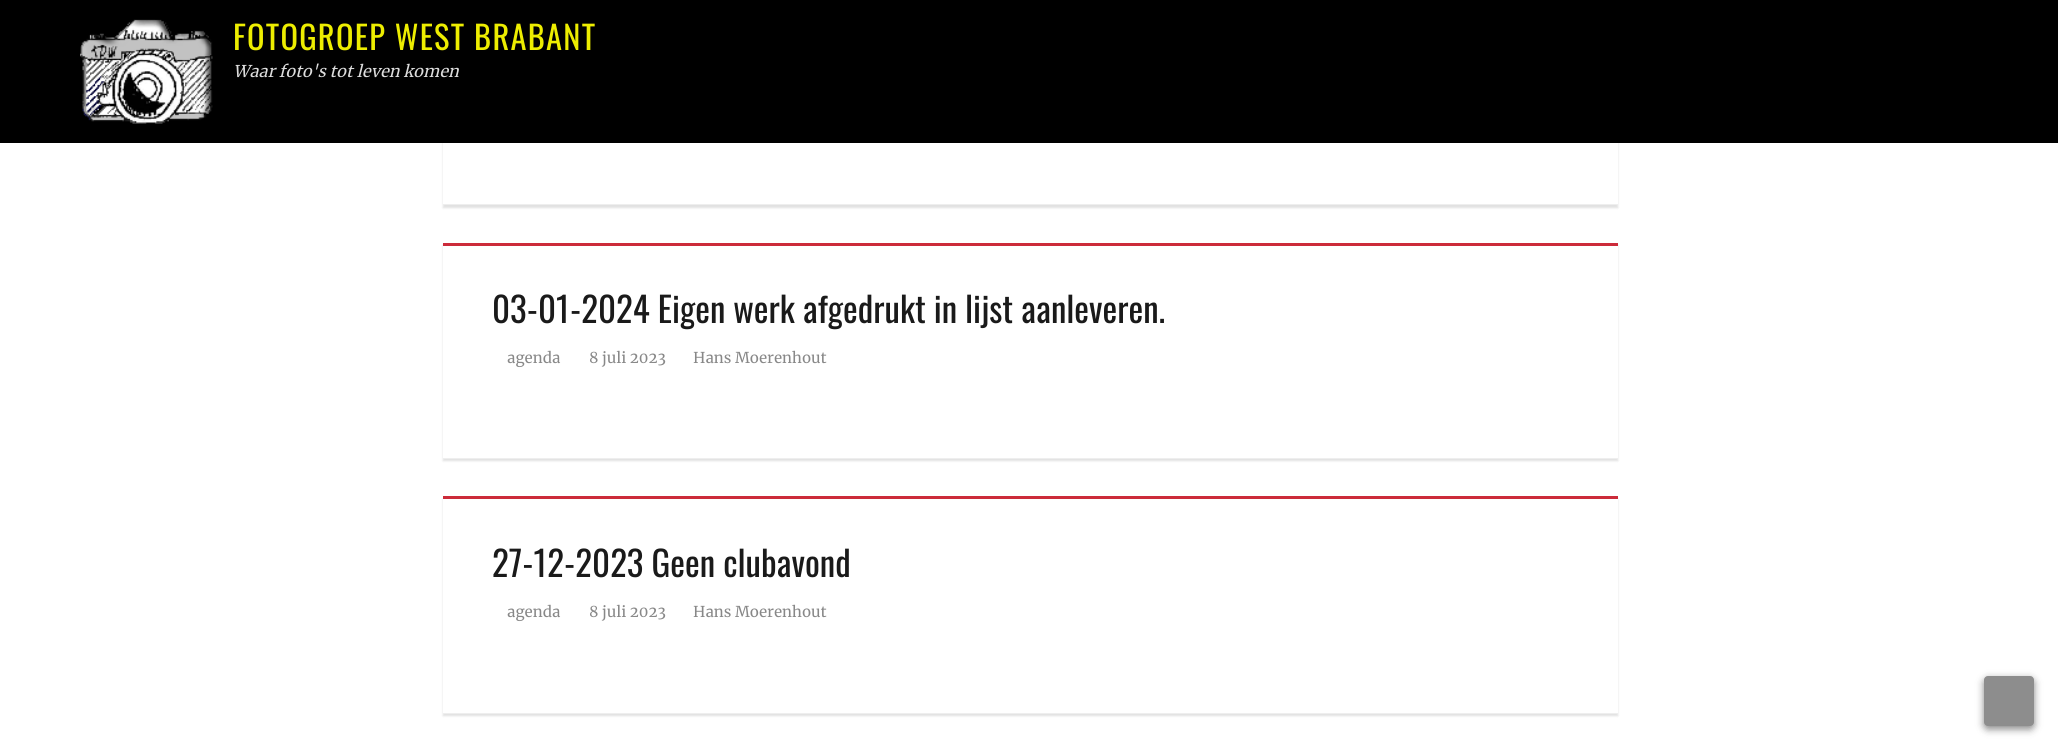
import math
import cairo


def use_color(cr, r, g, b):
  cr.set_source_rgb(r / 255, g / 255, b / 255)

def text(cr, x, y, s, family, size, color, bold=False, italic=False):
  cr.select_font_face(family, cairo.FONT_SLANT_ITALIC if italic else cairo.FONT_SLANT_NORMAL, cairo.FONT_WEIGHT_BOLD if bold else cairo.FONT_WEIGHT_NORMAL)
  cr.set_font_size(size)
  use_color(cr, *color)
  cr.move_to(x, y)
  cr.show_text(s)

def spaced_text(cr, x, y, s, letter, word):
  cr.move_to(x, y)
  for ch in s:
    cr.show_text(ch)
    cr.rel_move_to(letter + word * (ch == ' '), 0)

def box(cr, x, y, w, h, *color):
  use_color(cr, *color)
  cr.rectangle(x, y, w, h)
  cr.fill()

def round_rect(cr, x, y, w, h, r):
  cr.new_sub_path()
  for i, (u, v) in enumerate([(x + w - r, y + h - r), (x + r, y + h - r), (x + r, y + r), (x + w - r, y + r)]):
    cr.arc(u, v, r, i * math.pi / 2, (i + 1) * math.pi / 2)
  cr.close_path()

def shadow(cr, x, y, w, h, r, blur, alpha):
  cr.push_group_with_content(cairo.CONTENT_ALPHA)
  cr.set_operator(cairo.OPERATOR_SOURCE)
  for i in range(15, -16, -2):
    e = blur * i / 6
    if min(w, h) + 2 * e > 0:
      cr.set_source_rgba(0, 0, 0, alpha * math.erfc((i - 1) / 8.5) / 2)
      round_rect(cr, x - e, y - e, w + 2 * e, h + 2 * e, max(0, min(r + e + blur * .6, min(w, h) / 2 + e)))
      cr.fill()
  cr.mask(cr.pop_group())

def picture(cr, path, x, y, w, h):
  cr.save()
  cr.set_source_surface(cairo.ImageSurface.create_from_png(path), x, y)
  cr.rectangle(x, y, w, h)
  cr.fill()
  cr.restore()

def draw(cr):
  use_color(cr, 255, 255, 255)
  cr.paint()
  use_color(cr, 0, 0, 0)
  shadow(cr, 443, -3, 1175, 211, 0, 1, 0.12)
  box(cr, 0, 0, 2058, 143, 0, 0, 0)
  picture(cr, "img_01.png", 80, 19, 133, 105)
  box(cr, 443, 143, 1175, 61, 255, 255, 255)
  box(cr, 443, 204, 1175, 1, 238, 238, 238)
  use_color(cr, 0, 0, 0)
  shadow(cr, 443, 245, 1175, 216, 0, 1, 0.12)
  box(cr, 443, 246, 1175, 212, 255, 255, 255)
  box(cr, 443, 243, 1175, 3, 204, 43, 58)
  box(cr, 443, 458, 1175, 1, 238, 238, 238)
  use_color(cr, 0, 0, 0)
  shadow(cr, 443, 499, 1175, 217, 0, 1, 0.12)
  box(cr, 443, 499, 1175, 214, 255, 255, 255)
  box(cr, 443, 496, 1175, 3, 204, 43, 58)
  box(cr, 443, 713, 1175, 1, 238, 238, 238)
  use_color(cr, 11, 11, 11)
  shadow(cr, 1984, 679, 50, 50, 4, 4, 0.5)
  use_color(cr, 141, 141, 141)
  round_rect(cr, 1984, 676, 50, 50, 4)
  cr.fill()
  cr.select_font_face("Oswald")
  cr.set_font_size(32.5)
  use_color(cr, 237, 237, 0)
  spaced_text(cr, 233, 50, "FOTOGROEP WEST BRABANT", 1.25, 0)
  text(cr, 233, 77, "Waar foto's tot leven komen", "Merriweather", 16.25, (221, 221, 221), italic=True)
  text(cr, 492, 323, "03-01-2024 Eigen werk afgedrukt in lijst aanleveren.", "Oswald", 35, (26, 26, 26))
  text(cr, 507, 363, "agenda", "Merriweather", 15, (136, 136, 136))
  text(cr, 589, 363, "8 juli 2023", "Merriweather", 15, (136, 136, 136))
  text(cr, 693, 363, "Hans Moerenhout", "Merriweather", 15, (136, 136, 136))
  text(cr, 492, 577, "27-12-2023 Geen clubavond", "Oswald", 35, (26, 26, 26))
  text(cr, 507, 617, "agenda", "Merriweather", 15, (136, 136, 136))
  text(cr, 589, 617, "8 juli 2023", "Merriweather", 15, (136, 136, 136))
  text(cr, 693, 617, "Hans Moerenhout", "Merriweather", 15, (136, 136, 136))


surface = cairo.ImageSurface(cairo.FORMAT_RGB24, 2058, 751)
cr = cairo.Context(surface)
options = cairo.FontOptions()
options.set_hint_metrics(cairo.HINT_METRICS_OFF)
options.set_hint_style(cairo.HINT_STYLE_NONE)
cr.set_font_options(options)
cr.set_miter_limit(4)
draw(cr)
surface.write_to_png("out.png")
